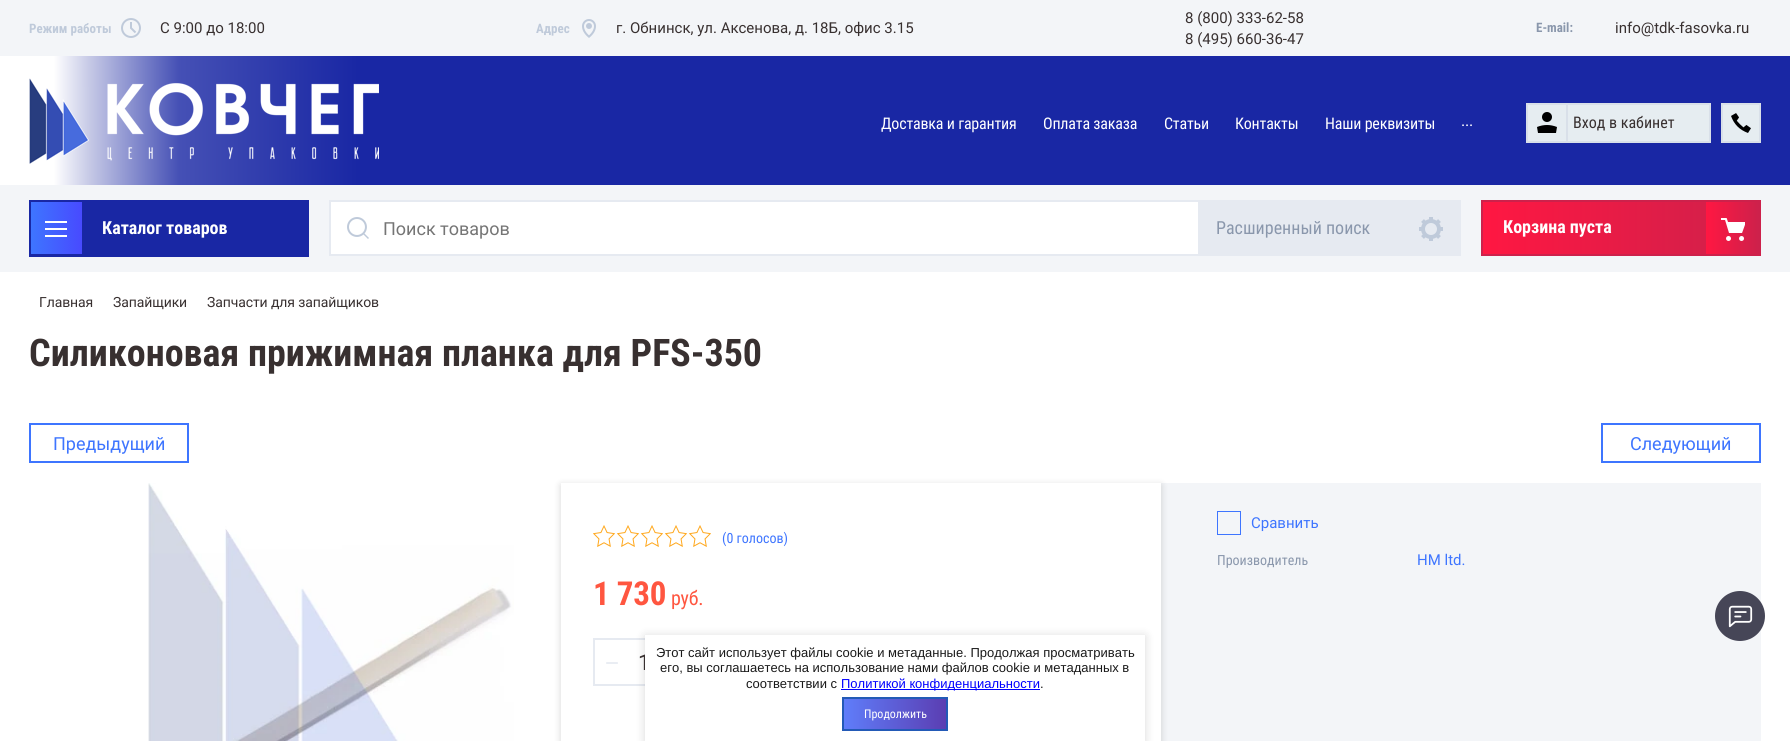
import math
import cairo


def use_color(cr, r, g, b):
  cr.set_source_rgb(r / 255, g / 255, b / 255)

def text(cr, x, y, s, family, size, color, bold=False, italic=False):
  cr.select_font_face(family, cairo.FONT_SLANT_ITALIC if italic else cairo.FONT_SLANT_NORMAL, cairo.FONT_WEIGHT_BOLD if bold else cairo.FONT_WEIGHT_NORMAL)
  cr.set_font_size(size)
  use_color(cr, *color)
  cr.move_to(x, y)
  cr.show_text(s)

def spaced_text(cr, x, y, s, letter, word):
  cr.move_to(x, y)
  for ch in s:
    cr.show_text(ch)
    cr.rel_move_to(letter + word * (ch == ' '), 0)

def box(cr, x, y, w, h, *color):
  use_color(cr, *color)
  cr.rectangle(x, y, w, h)
  cr.fill()

def round_rect(cr, x, y, w, h, r):
  cr.new_sub_path()
  for i, (u, v) in enumerate([(x + w - r, y + h - r), (x + r, y + h - r), (x + r, y + r), (x + w - r, y + r)]):
    cr.arc(u, v, r, i * math.pi / 2, (i + 1) * math.pi / 2)
  cr.close_path()

def shadow(cr, x, y, w, h, r, blur, alpha):
  cr.push_group_with_content(cairo.CONTENT_ALPHA)
  cr.set_operator(cairo.OPERATOR_SOURCE)
  for i in range(15, -16, -2):
    e = blur * i / 6
    if min(w, h) + 2 * e > 0:
      cr.set_source_rgba(0, 0, 0, alpha * math.erfc((i - 1) / 8.5) / 2)
      round_rect(cr, x - e, y - e, w + 2 * e, h + 2 * e, max(0, min(r + e + blur * .6, min(w, h) / 2 + e)))
      cr.fill()
  cr.mask(cr.pop_group())

def picture(cr, path, x, y, w, h):
  cr.save()
  cr.set_source_surface(cairo.ImageSurface.create_from_png(path), x, y)
  cr.rectangle(x, y, w, h)
  cr.fill()
  cr.restore()

def draw(cr):
  use_color(cr, 255, 255, 255)
  cr.paint()
  box(cr, 0, 0, 1790, 272, 243, 245, 248)
  picture(cr, "img_01.png", 121, 18, 20, 20)
  picture(cr, "img_02.png", 582, 19, 14, 19)
  gradient = cairo.LinearGradient(0, 121, 1790, 120)
  gradient.add_color_stop_rgba(0.03, 1, 1, 1, 1)
  gradient.add_color_stop_rgba(0.05, 0.776, 0.788, 0.902, 1)
  gradient.add_color_stop_rgba(0.1, 0.271, 0.314, 0.71, 1)
  gradient.add_color_stop_rgba(0.2, 0.098, 0.153, 0.643, 1)
  gradient.add_color_stop_rgba(1, 0.098, 0.153, 0.643, 1)
  cr.set_source(gradient)
  cr.rectangle(0, 56, 1790, 129)
  cr.fill()
  picture(cr, "img_03.png", 29, 78, 350, 86)
  use_color(cr, 230, 237, 241)
  cr.rectangle(1527, 104, 183, 38)
  cr.fill_preserve()
  use_color(cr, 217, 224, 233)
  cr.stroke()
  picture(cr, "img_04.png", 1537, 112, 20, 21)
  box(cr, 1566, 105, 2, 36, 217, 224, 233)
  box(cr, 1723, 105, 36, 36, 230, 237, 241)
  picture(cr, "img_05.png", 1731, 113, 20, 20)
  cr.rectangle(1722, 104, 38, 38)
  use_color(cr, 217, 224, 233)
  cr.stroke()
  box(cr, 29, 200, 280, 57, 25, 39, 164)
  picture(cr, "img_06.png", 31, 202, 51, 52)
  use_color(cr, 255, 255, 255)
  cr.rectangle(330, 201, 869, 54)
  cr.fill_preserve()
  use_color(cr, 230, 234, 241)
  cr.stroke()
  picture(cr, "img_07.png", 347, 217, 22, 22)
  box(cr, 1200, 200, 261, 56, 230, 234, 241)
  picture(cr, "img_08.png", 1419, 217, 24, 24)
  gradient = cairo.LinearGradient(1759, 228, 1483, 228)
  gradient.add_color_stop_rgba(0, 0.804, 0.129, 0.294, 1)
  gradient.add_color_stop_rgba(1, 1, 0.09, 0.259, 1)
  cr.set_source(gradient)
  cr.rectangle(1483, 202, 223, 52)
  cr.fill()
  cr.rectangle(1482, 201, 278, 54)
  use_color(cr, 205, 33, 75)
  cr.stroke()
  gradient = cairo.LinearGradient(1759, 228, 1706, 228)
  gradient.add_color_stop_rgba(0, 0.804, 0.129, 0.294, 1)
  gradient.add_color_stop_rgba(1, 1, 0.09, 0.259, 1)
  cr.set_source(gradient)
  cr.rectangle(1706, 202, 53, 52)
  cr.fill()
  picture(cr, "img_09.png", 1721, 218, 24, 23)
  cr.rectangle(30, 424, 158, 38)
  use_color(cr, 62, 117, 255)
  cr.stroke()
  cr.rectangle(1602, 424, 158, 38)
  cr.stroke()
  picture(cr, "img_10.png", 148, 483, 366, 258)
  box(cr, 1161, 483, 600, 258, 243, 245, 248)
  cr.save()
  cr.set_fill_rule(cairo.FILL_RULE_EVEN_ODD)
  cr.new_path()
  cr.move_to(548, 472)
  cr.line_to(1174, 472)
  cr.line_to(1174, 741)
  cr.line_to(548, 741)
  cr.close_path()
  cr.move_to(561, 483)
  cr.line_to(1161, 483)
  cr.line_to(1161, 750)
  cr.line_to(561, 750)
  cr.close_path()
  cr.clip()
  use_color(cr, 0, 0, 0)
  shadow(cr, 561, 485, 600, 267, 0, 4, 0.16)
  cr.restore()
  picture(cr, "img_11.png", 593, 525, 118, 22)
  cr.rectangle(594, 639, 100, 46)
  use_color(cr, 230, 234, 241)
  cr.stroke()
  cr.rectangle(1217.5, 511.5, 23, 23)
  use_color(cr, 62, 117, 255)
  cr.set_line_width(1)
  cr.stroke()
  use_color(cr, 0, 0, 0)
  shadow(cr, 645, 636, 500, 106, 0, 5, 0.15)
  use_color(cr, 70, 70, 87)
  cr.arc(1740, 616, 25, 0, 2 * math.pi)
  cr.fill()
  picture(cr, "img_12.png", 1728, 605, 25, 23)
  text(cr, 29, 33, "Режим работы", "Roboto Condensed", 13, (191, 202, 218), bold=True)
  text(cr, 160, 33, "C 9:00 до 18:00", "Roboto", 15, (56, 48, 48))
  text(cr, 536, 33, "Адрес", "Roboto Condensed", 13, (191, 202, 218), bold=True)
  text(cr, 616, 33, "г. Обнинск, ул. Аксенова, д. 18Б, офис 3.15", "Roboto", 15, (56, 48, 48))
  text(cr, 1185, 23, "8 (800) 333-62-58", "Roboto", 15, (56, 48, 48))
  text(cr, 1185, 44, "8 (495) 660-36-47", "Roboto", 15, (56, 48, 48))
  text(cr, 1536, 32, "Е-mail:", "Roboto Condensed", 13, (138, 151, 172), bold=True)
  text(cr, 1615, 33, "info@tdk-fasovka.ru", "Roboto", 15, (56, 48, 48))
  cr.select_font_face("Roboto Condensed")
  cr.set_font_size(16)
  use_color(cr, 255, 255, 255)
  spaced_text(cr, 881, 129, "Доставка и гарантия", -0.2, 0)
  spaced_text(cr, 1043, 129, "Оплата заказа", -0.2, 0)
  spaced_text(cr, 1164, 129, "Статьи", -0.2, 0)
  spaced_text(cr, 1235, 129, "Контакты", -0.2, 0)
  spaced_text(cr, 1325, 129, "Наши реквизиты", -0.2, 0)
  spaced_text(cr, 1461, 126, "...", -0.2, 0)
  text(cr, 1573, 128, "Вход в кабинет", "Roboto Condensed", 16, (56, 48, 48))
  text(cr, 102, 234, "Каталог товаров", "Roboto Condensed", 18, (255, 255, 255), bold=True)
  text(cr, 383, 235, "Поиск товаров", "Roboto", 18, (117, 117, 117))
  text(cr, 1216, 234, "Расширенный поиск", "Roboto Condensed", 18, (138, 151, 172))
  text(cr, 1503, 233, "Корзина пуста", "Roboto Condensed", 18, (255, 255, 255), bold=True)
  cr.select_font_face("Roboto")
  cr.set_font_size(14)
  use_color(cr, 56, 48, 48)
  spaced_text(cr, 39, 307, "Главная", -0.1, 0)
  spaced_text(cr, 113, 307, "Запайщики", -0.1, 0)
  spaced_text(cr, 207, 307, "Запчасти для запайщиков", -0.1, 0)
  text(cr, 29, 366, "Силиконовая прижимная планка для PFS-350", "Roboto Condensed", 38, (56, 48, 48), bold=True)
  text(cr, 53, 450, "Предыдущий", "Roboto", 18, (62, 117, 255))
  text(cr, 1630, 450, "Следующий", "Roboto", 18, (62, 117, 255))
  text(cr, 722, 543, "(0 голосов)", "Roboto Condensed", 14, (62, 117, 255))
  cr.select_font_face("Roboto Condensed", cairo.FONT_SLANT_NORMAL, cairo.FONT_WEIGHT_BOLD)
  cr.set_font_size(33)
  use_color(cr, 255, 86, 64)
  spaced_text(cr, 593, 605, "1 730", -0.25, 0)
  cr.select_font_face("Roboto Condensed")
  cr.set_font_size(20)
  spaced_text(cr, 671, 605, "руб.", -0.25, 0)
  text(cr, 605, 671, "−", "Liberation Sans", 24, (230, 234, 241))
  text(cr, 638, 670, "1", "Roboto", 22, (56, 48, 48))
  text(cr, 1251, 528, "Сравнить", "Roboto", 15, (62, 117, 255))
  text(cr, 1217, 565, "Производитель", "Roboto Condensed", 14, (138, 151, 172))
  text(cr, 1417, 565, "HM ltd.", "Roboto", 15, (62, 117, 255))
  box(cr, 645, 635, 500, 106, 255, 255, 255)
  text(cr, 656, 657, "Этот сайт использует файлы cookie и метаданные. Продолжая просматривать", "Liberation Sans", 13, (25, 25, 25))
  text(cr, 660, 672, "его, вы соглашаетесь на использование нами файлов cookie и метаданных в", "Liberation Sans", 13, (25, 25, 25))
  text(cr, 746, 688, "соответствии с", "Liberation Sans", 13, (25, 25, 25))
  box(cr, 841, 689, 199, 1, 0, 0, 255)
  text(cr, 841, 688, "Политикой конфиденциальности", "Liberation Sans", 13, (0, 0, 255))
  text(cr, 1040, 688, ".", "Liberation Sans", 13, (25, 25, 25))
  gradient = cairo.LinearGradient(844, 714, 946, 714)
  gradient.add_color_stop_rgba(0, 0.373, 0.49, 0.98, 1)
  gradient.add_color_stop_rgba(1, 0.357, 0.243, 0.698, 1)
  cr.set_source(gradient)
  cr.rectangle(844, 699, 102, 30)
  cr.fill()
  cr.rectangle(843, 698, 104, 32)
  use_color(cr, 35, 90, 183)
  cr.set_line_width(2)
  cr.stroke()
  text(cr, 864, 718, "Продолжить", "Roboto Condensed", 12, (255, 255, 255))


surface = cairo.ImageSurface(cairo.FORMAT_RGB24, 1790, 741)
cr = cairo.Context(surface)
options = cairo.FontOptions()
options.set_hint_metrics(cairo.HINT_METRICS_OFF)
options.set_hint_style(cairo.HINT_STYLE_NONE)
cr.set_font_options(options)
cr.set_miter_limit(4)
draw(cr)
surface.write_to_png("out.png")
